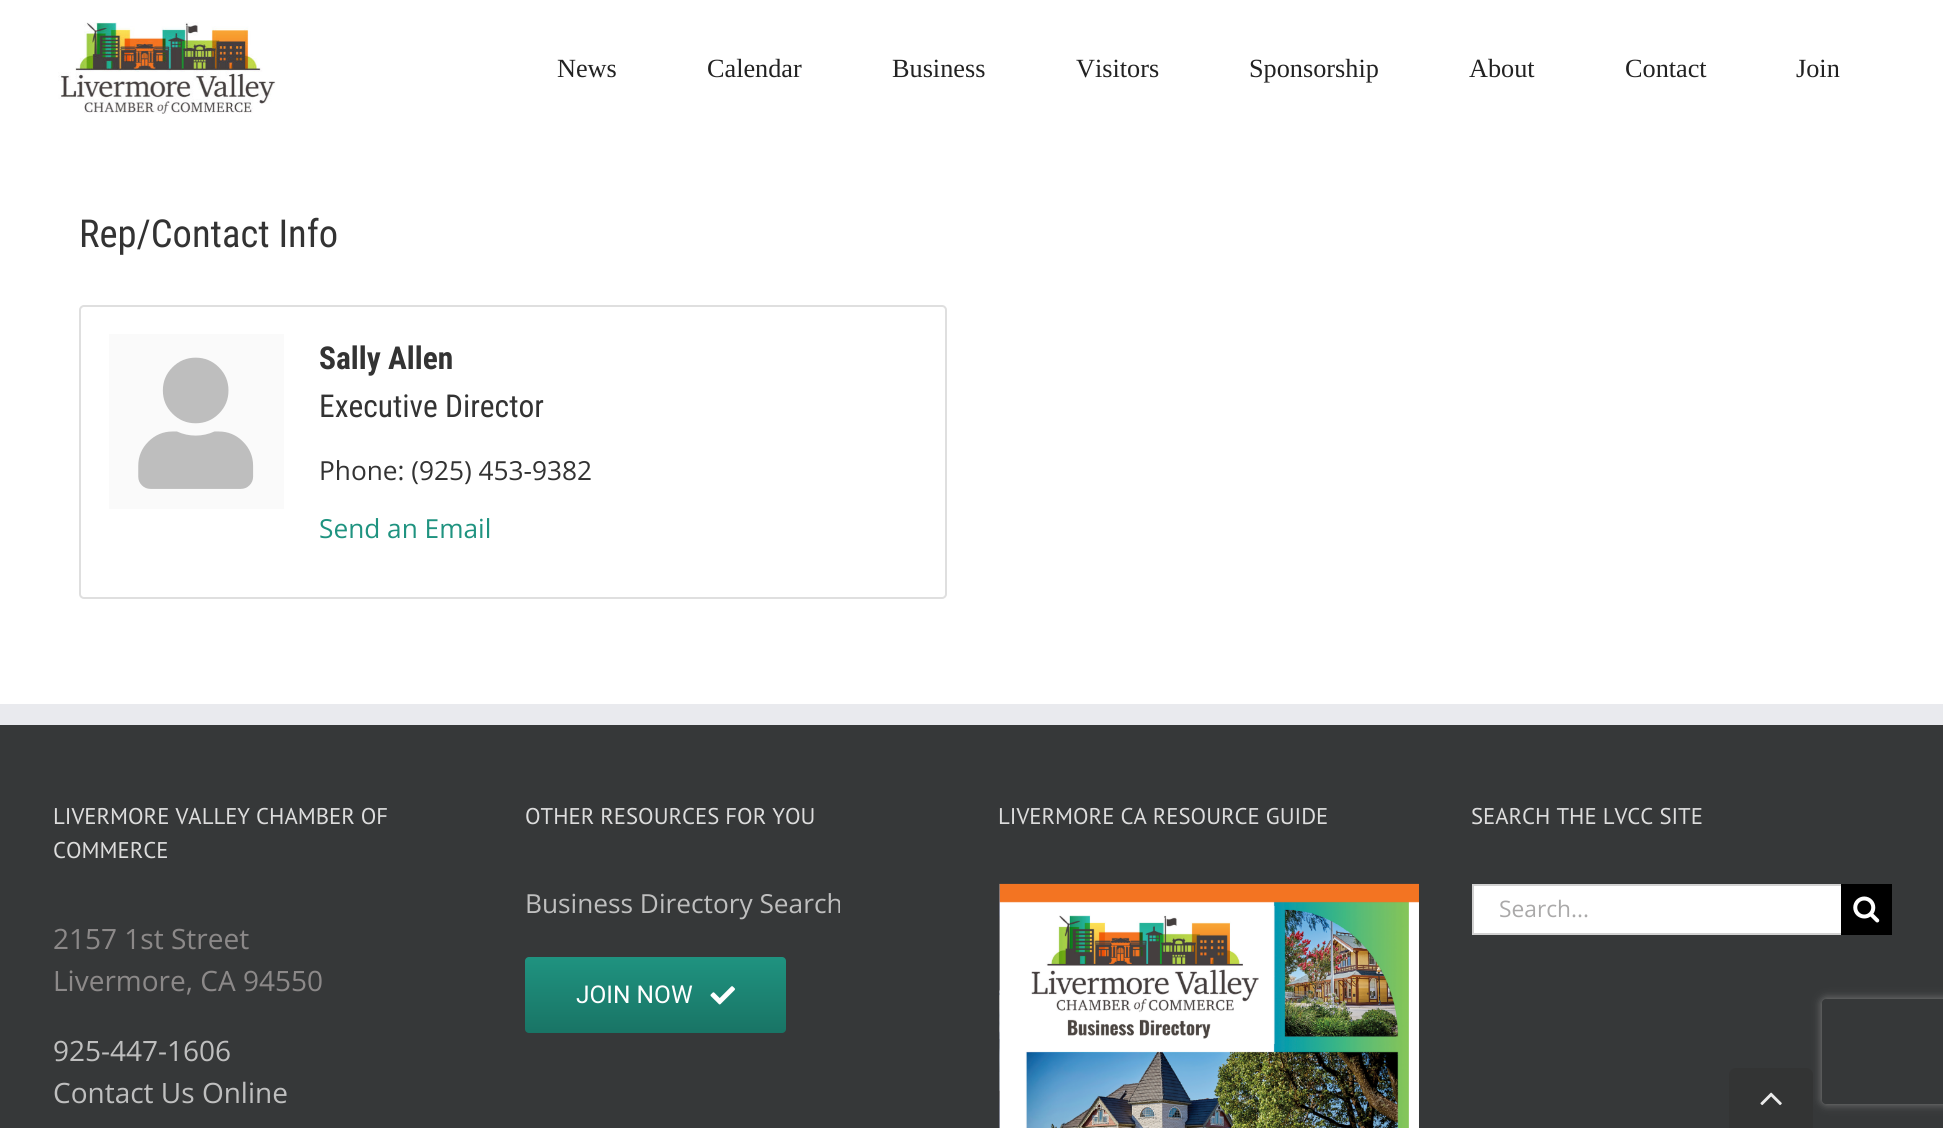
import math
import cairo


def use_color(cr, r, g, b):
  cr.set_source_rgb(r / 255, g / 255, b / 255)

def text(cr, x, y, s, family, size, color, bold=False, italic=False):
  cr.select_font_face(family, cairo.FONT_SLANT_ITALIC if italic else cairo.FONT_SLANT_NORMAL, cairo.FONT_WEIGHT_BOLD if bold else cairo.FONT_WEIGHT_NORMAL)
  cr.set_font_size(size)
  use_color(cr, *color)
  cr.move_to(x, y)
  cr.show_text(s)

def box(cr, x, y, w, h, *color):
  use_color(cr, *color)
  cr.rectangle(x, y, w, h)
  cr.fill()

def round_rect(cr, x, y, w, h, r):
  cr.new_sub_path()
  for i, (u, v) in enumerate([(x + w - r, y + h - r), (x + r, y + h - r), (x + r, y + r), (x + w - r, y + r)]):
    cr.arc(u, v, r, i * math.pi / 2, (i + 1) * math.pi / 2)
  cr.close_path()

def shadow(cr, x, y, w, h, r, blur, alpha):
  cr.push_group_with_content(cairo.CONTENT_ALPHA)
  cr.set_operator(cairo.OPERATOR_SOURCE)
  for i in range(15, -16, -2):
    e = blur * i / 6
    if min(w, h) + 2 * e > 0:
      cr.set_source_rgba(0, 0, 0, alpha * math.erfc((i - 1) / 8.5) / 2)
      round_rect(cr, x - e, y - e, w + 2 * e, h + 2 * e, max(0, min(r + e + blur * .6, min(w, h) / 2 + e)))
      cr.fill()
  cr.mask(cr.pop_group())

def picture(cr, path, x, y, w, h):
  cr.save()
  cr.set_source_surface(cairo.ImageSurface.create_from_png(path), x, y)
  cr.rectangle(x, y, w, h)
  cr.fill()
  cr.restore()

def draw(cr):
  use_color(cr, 255, 255, 255)
  cr.paint()
  picture(cr, "img_01.png", 58, 22, 218, 92)
  round_rect(cr, 80, 306, 866, 292, 4)
  use_color(cr, 223, 223, 223)
  cr.stroke()
  box(cr, 109, 334, 175, 175, 250, 250, 250)
  picture(cr, "img_02.png", 138, 357, 116, 132)
  box(cr, 0, 725, 1943, 403, 54, 56, 57)
  box(cr, 0, 704, 1943, 21, 233, 234, 238)
  gradient = cairo.LinearGradient(655, 957, 655, 1033)
  gradient.add_color_stop_rgba(0, 0.122, 0.576, 0.502, 1)
  gradient.add_color_stop_rgba(1, 0.098, 0.455, 0.396, 1)
  cr.set_source(gradient)
  round_rect(cr, 525, 957, 261, 76, 4)
  cr.fill()
  picture(cr, "img_03.png", 710, 986, 25, 19)
  picture(cr, "img_04.png", 999, 883, 420, 245)
  box(cr, 1474, 886, 367, 47, 255, 255, 255)
  box(cr, 1472, 884, 369, 2, 210, 210, 210)
  box(cr, 1472, 933, 369, 2, 210, 210, 210)
  box(cr, 1472, 884, 2, 51, 210, 210, 210)
  box(cr, 1841, 884, 51, 51, 0, 0, 0)
  picture(cr, "img_05.png", 1853, 896, 27, 27)
  cr.save()
  cr.set_fill_rule(cairo.FILL_RULE_EVEN_ODD)
  cr.new_path()
  cr.move_to(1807, 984)
  cr.line_to(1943, 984)
  cr.line_to(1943, 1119)
  cr.line_to(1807, 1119)
  cr.close_path()
  cr.move_to(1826, 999)
  cr.line_to(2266, 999)
  cr.curve_to(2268, 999, 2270, 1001, 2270, 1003)
  cr.line_to(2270, 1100)
  cr.curve_to(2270, 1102, 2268, 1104, 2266, 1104)
  cr.line_to(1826, 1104)
  cr.curve_to(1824, 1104, 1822, 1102, 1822, 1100)
  cr.line_to(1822, 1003)
  cr.curve_to(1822, 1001, 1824, 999, 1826, 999)
  cr.close_path()
  cr.clip()
  use_color(cr, 128, 128, 128)
  shadow(cr, 1822, 999, 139, 105, 4, 4.5, 1)
  cr.restore()
  use_color(cr, 51, 52, 52)
  cr.new_path()
  cr.move_to(1736, 1068)
  cr.line_to(1806, 1068)
  cr.curve_to(1810, 1068, 1813, 1071, 1813, 1075)
  cr.line_to(1813, 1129)
  cr.line_to(1729, 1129)
  cr.line_to(1729, 1075)
  cr.curve_to(1729, 1071, 1732, 1068, 1736, 1068)
  cr.close_path()
  cr.fill()
  picture(cr, "img_06.png", 1760, 1092, 22, 14)
  text(cr, 557, 77, "News", "Liberation Serif", 26.25, (34, 34, 34))
  text(cr, 707, 77, "Calendar", "Liberation Serif", 26.25, (34, 34, 34))
  text(cr, 892, 77, "Business", "Liberation Serif", 26.25, (34, 34, 34))
  text(cr, 1076, 77, "Visitors", "Liberation Serif", 26.25, (34, 34, 34))
  text(cr, 1249, 77, "Sponsorship", "Liberation Serif", 26.25, (34, 34, 34))
  text(cr, 1469, 77, "About", "Liberation Serif", 26.25, (34, 34, 34))
  text(cr, 1625, 77, "Contact", "Liberation Serif", 26.25, (34, 34, 34))
  text(cr, 1796, 77, "Join", "Liberation Serif", 26.25, (34, 34, 34))
  text(cr, 79, 247, "Rep/Contact Info", "Roboto Condensed", 38.5, (51, 51, 51))
  text(cr, 319, 369, "Sally Allen", "Roboto Condensed", 31.5, (51, 51, 51), bold=True)
  text(cr, 319, 417, "Executive Director", "Roboto Condensed", 31.5, (51, 51, 51))
  text(cr, 319, 480, "Phone: (925) 453-9382", "Open Sans", 26.25, (51, 51, 51))
  text(cr, 319, 538, "Send an Email", "Open Sans", 26.25, (31, 147, 128))
  text(cr, 53, 824, "LIVERMORE VALLEY CHAMBER OF", "PT Sans", 22.75, (221, 221, 221))
  text(cr, 53, 858, "COMMERCE", "PT Sans", 22.75, (221, 221, 221))
  text(cr, 53, 949, "2157 1st Street", "Open Sans", 28, (140, 137, 137))
  text(cr, 53, 991, "Livermore, CA 94550", "Open Sans", 28, (140, 137, 137))
  text(cr, 53, 1061, "925-447-1606", "Open Sans", 28, (191, 191, 191))
  text(cr, 53, 1103, "Contact Us Online", "Open Sans", 28, (191, 191, 191))
  text(cr, 525, 824, "OTHER RESOURCES FOR YOU", "PT Sans", 22.75, (221, 221, 221))
  text(cr, 525, 913, "Business Directory Search", "Open Sans", 26.25, (191, 191, 191))
  text(cr, 576, 1003, "JOIN NOW", "Roboto", 24.5, (255, 255, 255))
  text(cr, 998, 824, "LIVERMORE CA RESOURCE GUIDE", "PT Sans", 22.75, (221, 221, 221))
  text(cr, 1471, 824, "SEARCH THE LVCC SITE", "PT Sans", 22.75, (221, 221, 221))
  text(cr, 1499, 917, "Search...", "Open Sans", 22.75, (170, 169, 169))


surface = cairo.ImageSurface(cairo.FORMAT_RGB24, 1943, 1128)
cr = cairo.Context(surface)
options = cairo.FontOptions()
options.set_hint_metrics(cairo.HINT_METRICS_OFF)
options.set_hint_style(cairo.HINT_STYLE_NONE)
cr.set_font_options(options)
cr.set_miter_limit(4)
draw(cr)
surface.write_to_png("out.png")
